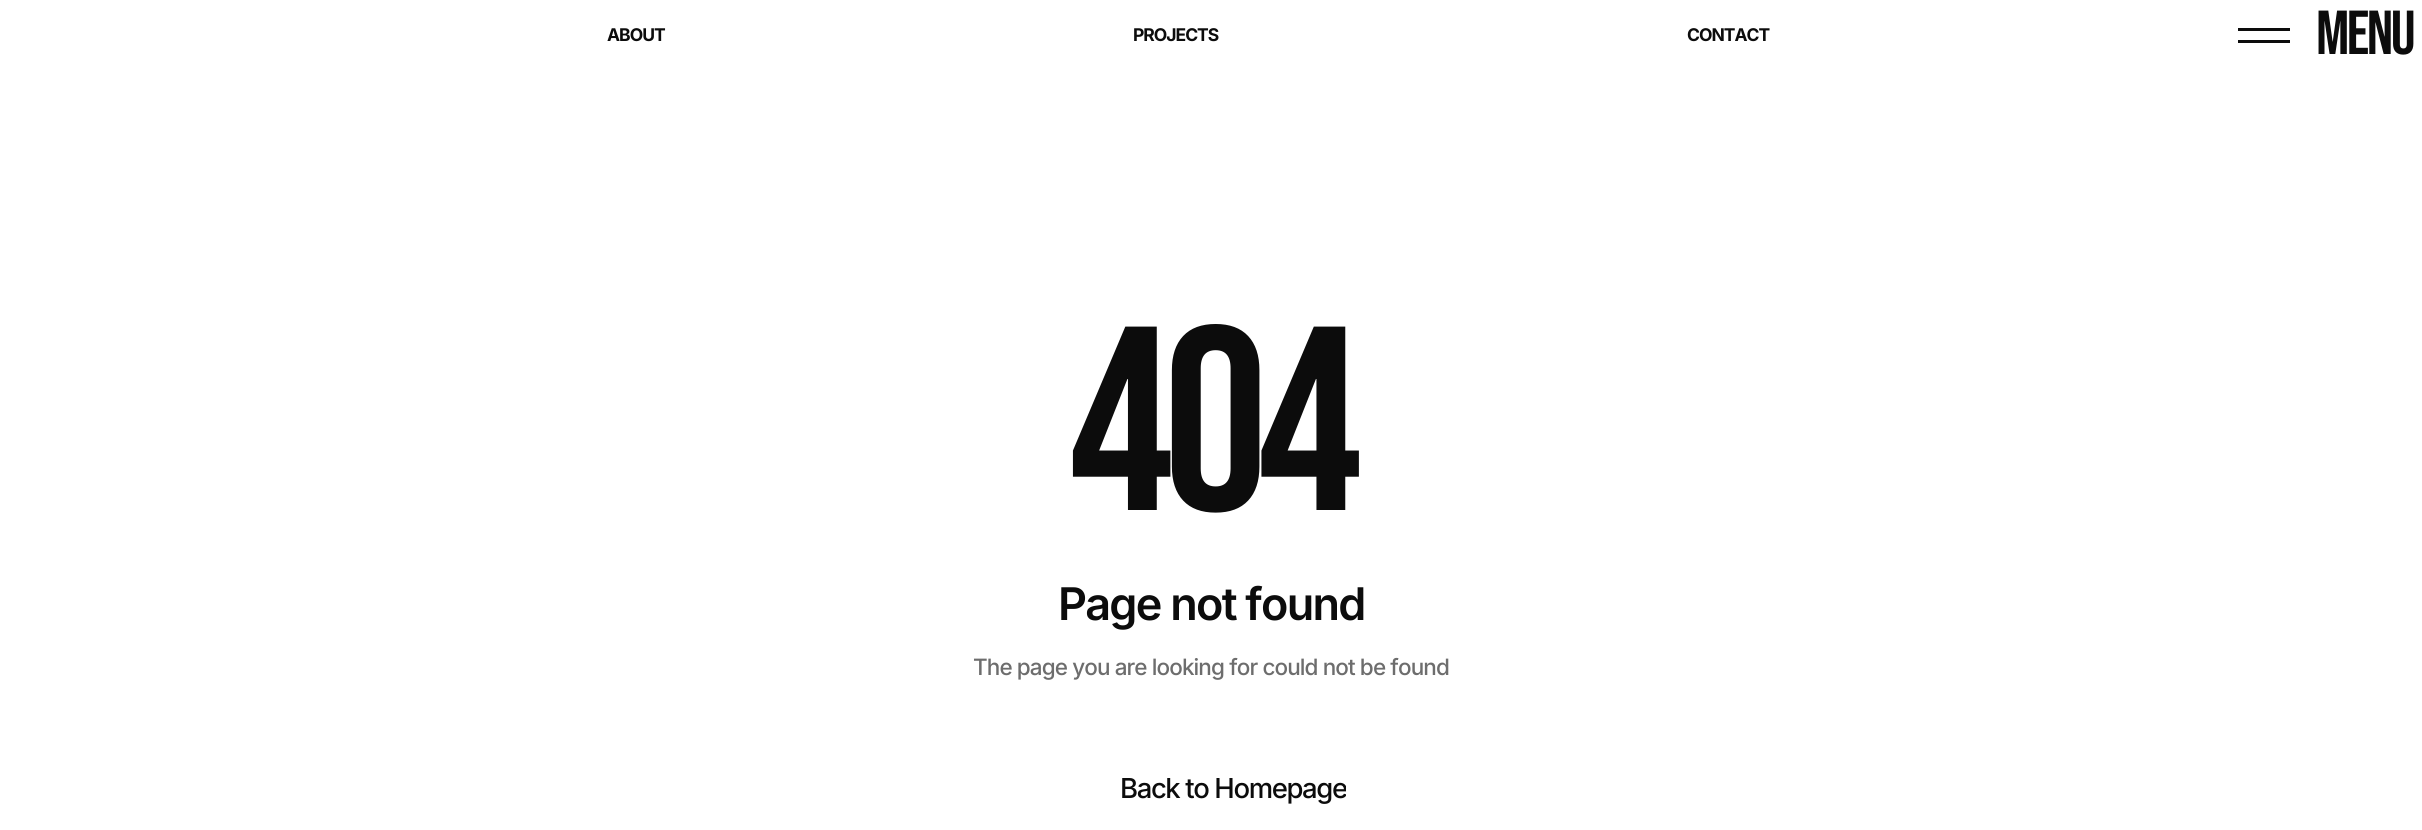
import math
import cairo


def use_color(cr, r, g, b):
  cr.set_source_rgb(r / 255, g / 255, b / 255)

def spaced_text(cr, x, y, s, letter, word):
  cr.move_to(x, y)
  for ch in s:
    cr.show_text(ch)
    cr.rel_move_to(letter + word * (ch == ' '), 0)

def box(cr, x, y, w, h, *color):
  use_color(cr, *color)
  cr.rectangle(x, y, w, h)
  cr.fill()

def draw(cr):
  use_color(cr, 255, 255, 255)
  cr.paint()
  box(cr, 2238, 28, 52, 3, 12, 12, 12)
  box(cr, 2238, 40, 52, 3, 12, 12, 12)
  cr.select_font_face("Inter", cairo.FONT_SLANT_NORMAL, cairo.FONT_WEIGHT_BOLD)
  cr.set_font_size(17.5)
  spaced_text(cr, 607, 41, "ABOUT", -1, 0)
  spaced_text(cr, 1133, 41, "PROJECTS", -1, 0)
  spaced_text(cr, 1687, 41, "CONTACT", -1, 0)
  cr.select_font_face("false")
  cr.set_font_size(62)
  spaced_text(cr, 2316, 54, "MENU", -2.5, 0)
  cr.set_font_size(262)
  spaced_text(cr, 1069, 510, "404", -10.5, 0)
  cr.select_font_face("Inter SemiBold")
  cr.set_font_size(45)
  spaced_text(cr, 1058, 620, "Page not found", -1.75, 0)
  cr.select_font_face("Inter Medium")
  cr.set_font_size(22.5)
  use_color(cr, 109, 109, 109)
  spaced_text(cr, 973, 675, "The page you are looking for could not be found", -0.9, 0)
  cr.save()
  cr.rectangle(1076, 770, 270, 36)
  cr.clip()
  cr.set_font_size(27.5)
  use_color(cr, 12, 12, 12)
  spaced_text(cr, 1120, 798, "Back to Homepage", -1.4, 0)
  cr.restore()


surface = cairo.ImageSurface(cairo.FORMAT_RGB24, 2422, 830)
cr = cairo.Context(surface)
options = cairo.FontOptions()
options.set_hint_metrics(cairo.HINT_METRICS_OFF)
options.set_hint_style(cairo.HINT_STYLE_NONE)
cr.set_font_options(options)
cr.set_miter_limit(4)
draw(cr)
surface.write_to_png("out.png")
